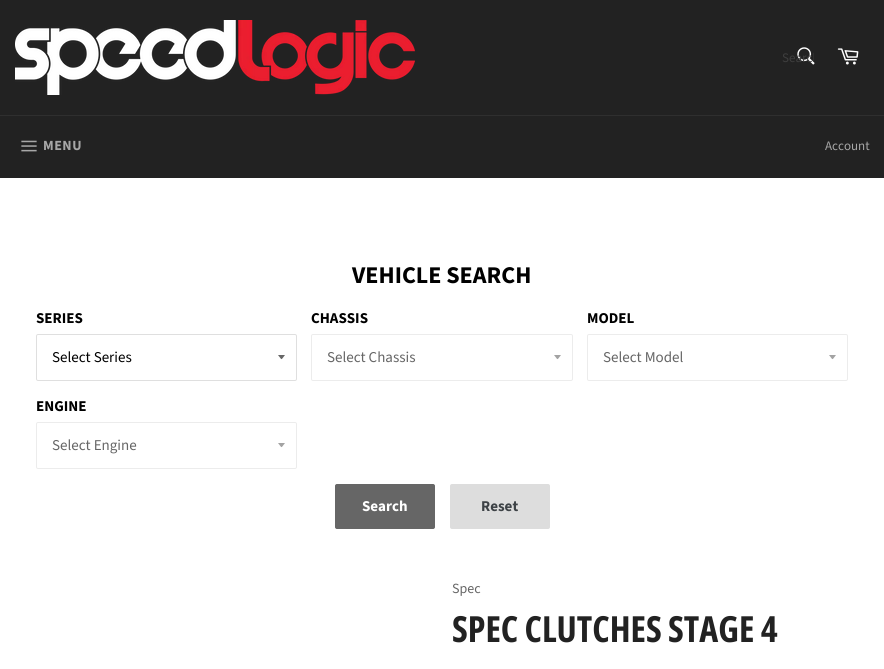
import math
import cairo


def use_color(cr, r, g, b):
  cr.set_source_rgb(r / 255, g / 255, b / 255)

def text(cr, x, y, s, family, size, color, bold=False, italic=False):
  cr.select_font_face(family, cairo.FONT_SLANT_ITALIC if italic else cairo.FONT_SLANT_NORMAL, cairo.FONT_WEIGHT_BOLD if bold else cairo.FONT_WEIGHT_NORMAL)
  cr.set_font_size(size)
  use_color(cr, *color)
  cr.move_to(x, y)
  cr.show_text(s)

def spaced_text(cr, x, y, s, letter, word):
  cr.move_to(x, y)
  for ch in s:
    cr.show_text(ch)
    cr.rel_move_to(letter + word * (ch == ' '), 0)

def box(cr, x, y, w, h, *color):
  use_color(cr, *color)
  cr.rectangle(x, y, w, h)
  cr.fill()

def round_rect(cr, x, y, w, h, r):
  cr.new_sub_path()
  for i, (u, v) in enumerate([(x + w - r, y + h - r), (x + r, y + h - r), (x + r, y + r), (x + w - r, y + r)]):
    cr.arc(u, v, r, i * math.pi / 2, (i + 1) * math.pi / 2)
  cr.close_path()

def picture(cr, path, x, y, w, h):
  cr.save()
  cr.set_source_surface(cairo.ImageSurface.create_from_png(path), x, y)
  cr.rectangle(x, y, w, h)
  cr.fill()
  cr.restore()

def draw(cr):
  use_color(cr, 34, 34, 34)
  cr.paint()
  picture(cr, "img_01.png", 15, 20, 400, 75)
  picture(cr, "img_02.png", 797, 47, 18, 18)
  picture(cr, "img_03.png", 837, 48, 22, 17)
  box(cr, 0, 115, 884, 1, 47, 47, 47)
  picture(cr, "img_04.png", 21, 140, 16, 12)
  box(cr, 0, 178, 884, 491, 255, 255, 255)
  use_color(cr, 102, 102, 102)
  cr.new_path()
  cr.move_to(278, 355)
  cr.curve_to(282.5, 360.5, 280.5, 360.5, 285, 355)
  cr.close_path()
  cr.fill()
  round_rect(cr, 36.5, 334.5, 260, 46, 1.5)
  use_color(cr, 223, 223, 223)
  cr.set_line_width(1)
  cr.stroke()
  use_color(cr, 163, 163, 163)
  cr.new_path()
  cr.move_to(554, 355)
  cr.curve_to(558.5, 360.5, 556.5, 360.5, 561, 355)
  cr.close_path()
  cr.fill()
  round_rect(cr, 311.5, 334.5, 261, 46, 1.5)
  use_color(cr, 236, 236, 236)
  cr.stroke()
  use_color(cr, 163, 163, 163)
  cr.new_path()
  cr.move_to(829, 355)
  cr.curve_to(833.5, 360.5, 831.5, 360.5, 836, 355)
  cr.close_path()
  cr.fill()
  round_rect(cr, 587.5, 334.5, 260, 46, 1.5)
  use_color(cr, 236, 236, 236)
  cr.stroke()
  use_color(cr, 163, 163, 163)
  cr.new_path()
  cr.move_to(278, 443)
  cr.curve_to(282.5, 448.5, 280.5, 448.5, 285, 443)
  cr.close_path()
  cr.fill()
  round_rect(cr, 36.5, 422.5, 260, 46, 1.5)
  use_color(cr, 236, 236, 236)
  cr.stroke()
  use_color(cr, 102, 102, 102)
  round_rect(cr, 335.5, 484.5, 99, 44, 1.5)
  cr.fill_preserve()
  cr.stroke()
  use_color(cr, 221, 221, 221)
  round_rect(cr, 450.5, 484.5, 99, 44, 1.5)
  cr.fill_preserve()
  cr.stroke()
  cr.save()
  cr.rectangle(782, 49, 32, 18)
  cr.clip()
  text(cr, 782, 62, "Search", "Source Sans Pro", 13, (62, 62, 62))
  cr.restore()
  cr.select_font_face("Source Sans Pro", cairo.FONT_SLANT_NORMAL, cairo.FONT_WEIGHT_BOLD)
  cr.set_font_size(14)
  use_color(cr, 167, 167, 167)
  spaced_text(cr, 43, 150, "MENU", 0.5, 0)
  text(cr, 825, 150, "Account", "Source Sans Pro", 13, (167, 167, 167))
  text(cr, 352, 283, "VEHICLE SEARCH", "Source Sans Pro", 24, (0, 0, 0), bold=True)
  text(cr, 36, 323, "SERIES", "Source Sans Pro", 15, (0, 0, 0), bold=True)
  text(cr, 52, 362, "Select Series", "Source Sans Pro", 15, (0, 0, 0))
  text(cr, 311, 323, "CHASSIS", "Source Sans Pro", 15, (0, 0, 0), bold=True)
  text(cr, 327, 362, "Select Chassis", "Source Sans Pro", 15, (102, 102, 102))
  text(cr, 587, 323, "MODEL", "Source Sans Pro", 15, (0, 0, 0), bold=True)
  text(cr, 603, 362, "Select Model", "Source Sans Pro", 15, (102, 102, 102))
  text(cr, 36, 411, "ENGINE", "Source Sans Pro", 15, (0, 0, 0), bold=True)
  text(cr, 52, 450, "Select Engine", "Source Sans Pro", 15, (102, 102, 102))
  text(cr, 362, 511, "Search", "Source Sans Pro", 15, (255, 255, 255), bold=True)
  text(cr, 481, 511, "Reset", "Source Sans Pro", 15, (61, 66, 70), bold=True)
  text(cr, 452, 593, "Spec", "Source Sans Pro", 14, (102, 102, 102))
  text(cr, 452, 642, "SPEC CLUTCHES STAGE 4", "Open Sans Condensed", 36, (34, 34, 34), bold=True)


surface = cairo.ImageSurface(cairo.FORMAT_RGB24, 884, 669)
cr = cairo.Context(surface)
options = cairo.FontOptions()
options.set_hint_metrics(cairo.HINT_METRICS_OFF)
options.set_hint_style(cairo.HINT_STYLE_NONE)
cr.set_font_options(options)
cr.set_miter_limit(4)
draw(cr)
surface.write_to_png("out.png")
